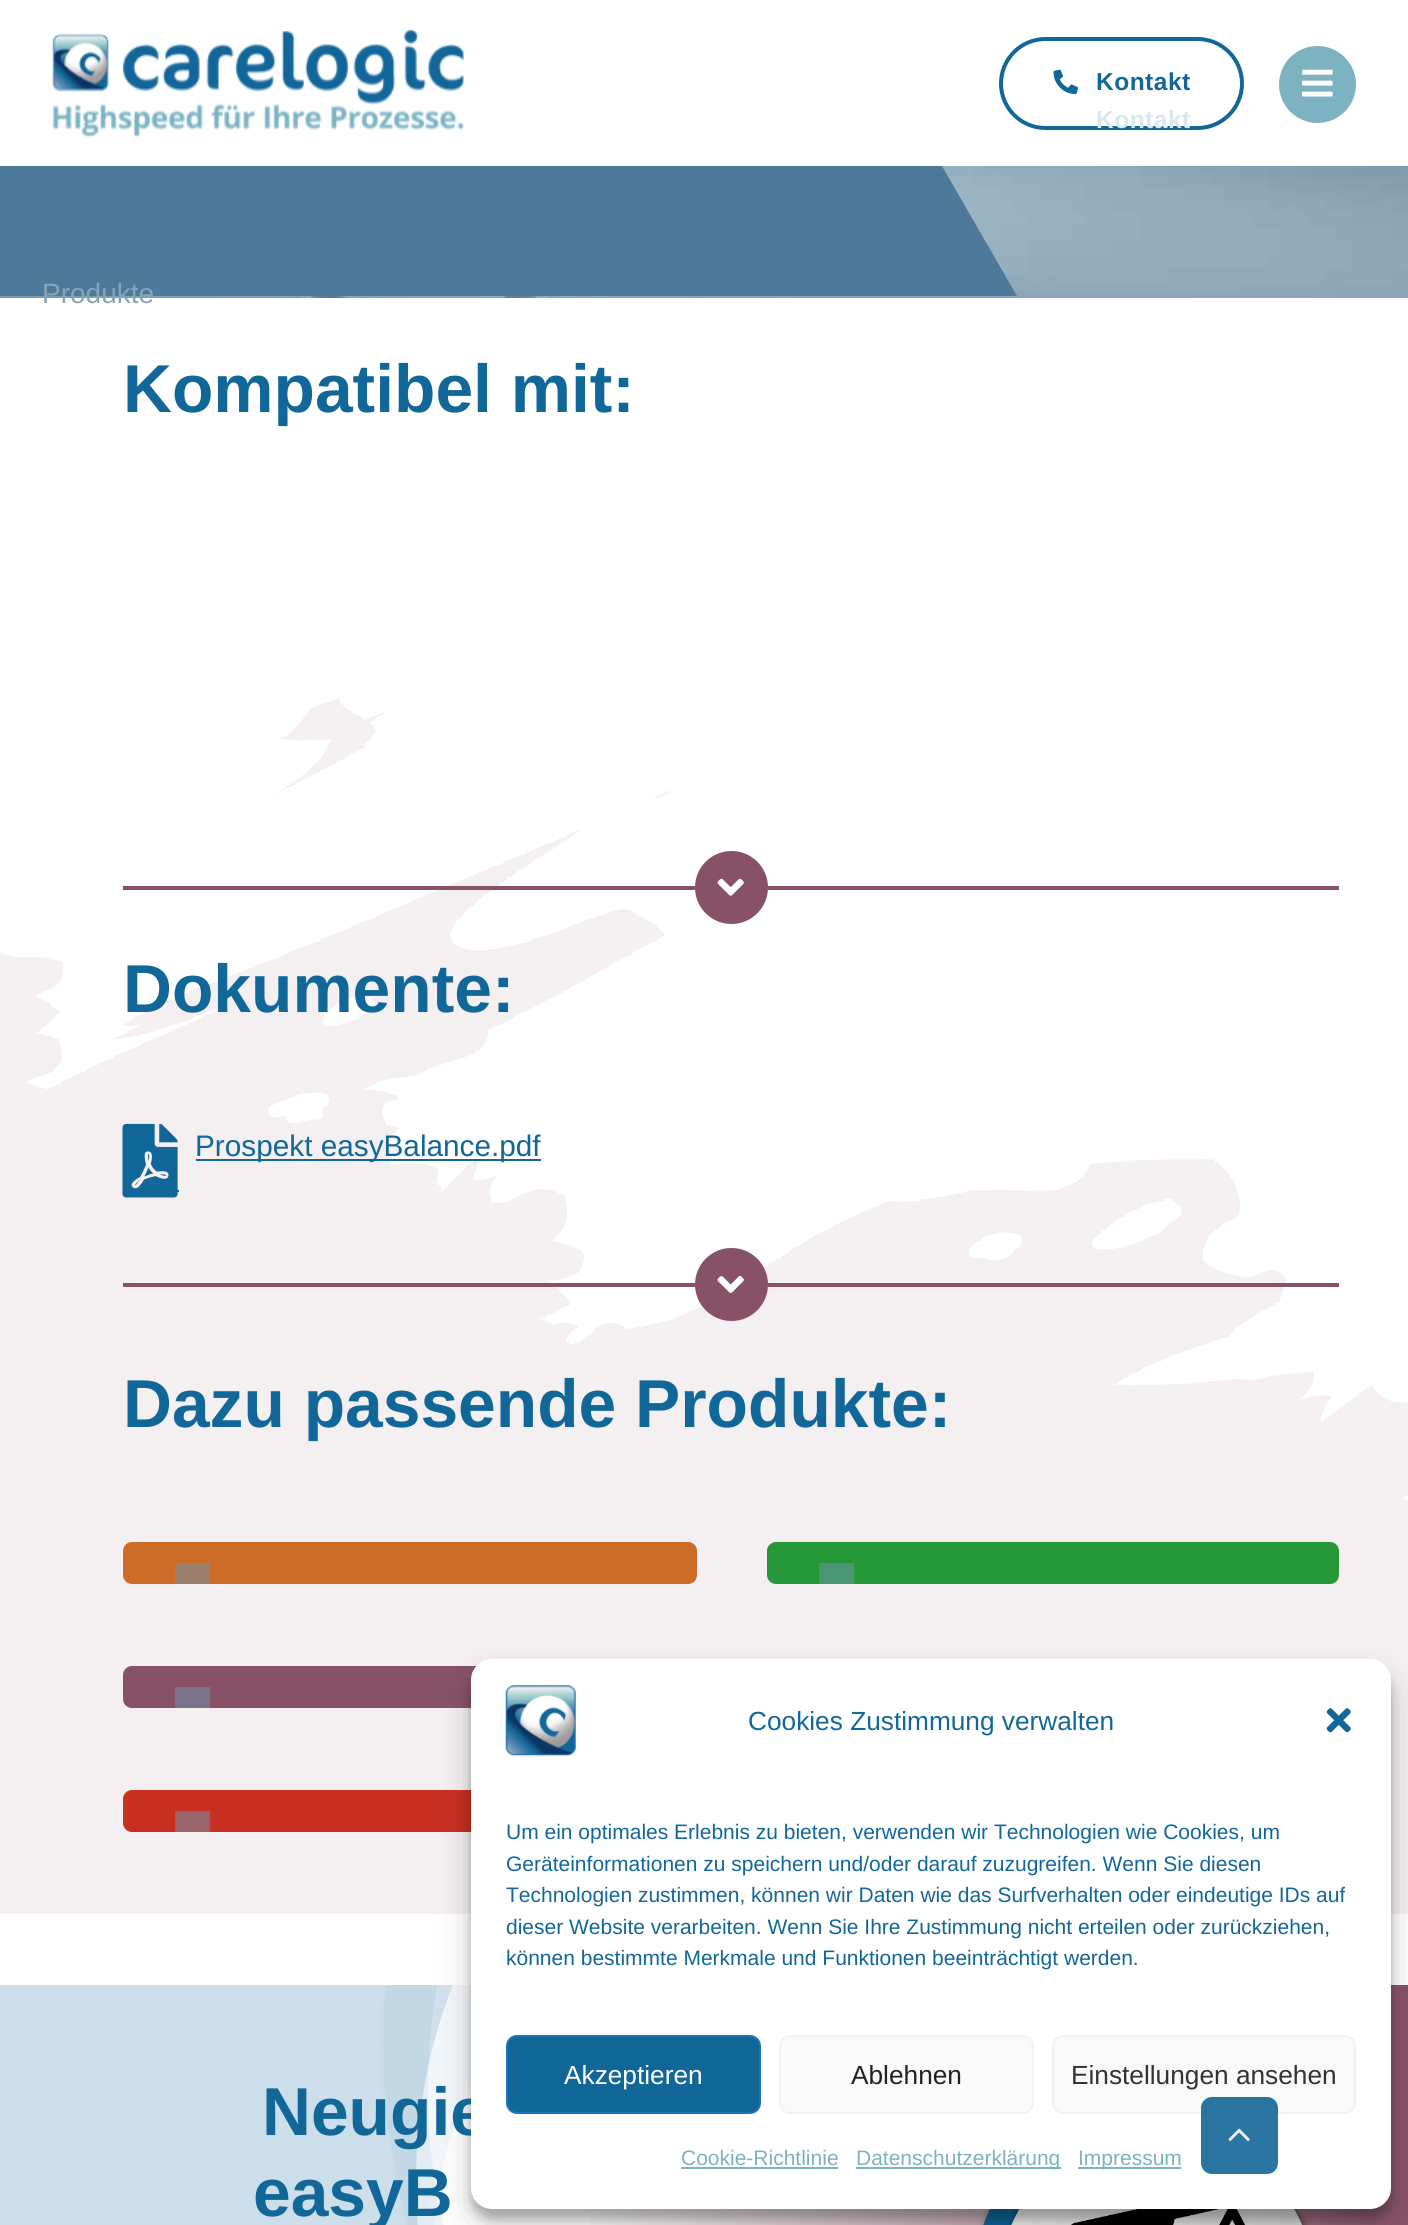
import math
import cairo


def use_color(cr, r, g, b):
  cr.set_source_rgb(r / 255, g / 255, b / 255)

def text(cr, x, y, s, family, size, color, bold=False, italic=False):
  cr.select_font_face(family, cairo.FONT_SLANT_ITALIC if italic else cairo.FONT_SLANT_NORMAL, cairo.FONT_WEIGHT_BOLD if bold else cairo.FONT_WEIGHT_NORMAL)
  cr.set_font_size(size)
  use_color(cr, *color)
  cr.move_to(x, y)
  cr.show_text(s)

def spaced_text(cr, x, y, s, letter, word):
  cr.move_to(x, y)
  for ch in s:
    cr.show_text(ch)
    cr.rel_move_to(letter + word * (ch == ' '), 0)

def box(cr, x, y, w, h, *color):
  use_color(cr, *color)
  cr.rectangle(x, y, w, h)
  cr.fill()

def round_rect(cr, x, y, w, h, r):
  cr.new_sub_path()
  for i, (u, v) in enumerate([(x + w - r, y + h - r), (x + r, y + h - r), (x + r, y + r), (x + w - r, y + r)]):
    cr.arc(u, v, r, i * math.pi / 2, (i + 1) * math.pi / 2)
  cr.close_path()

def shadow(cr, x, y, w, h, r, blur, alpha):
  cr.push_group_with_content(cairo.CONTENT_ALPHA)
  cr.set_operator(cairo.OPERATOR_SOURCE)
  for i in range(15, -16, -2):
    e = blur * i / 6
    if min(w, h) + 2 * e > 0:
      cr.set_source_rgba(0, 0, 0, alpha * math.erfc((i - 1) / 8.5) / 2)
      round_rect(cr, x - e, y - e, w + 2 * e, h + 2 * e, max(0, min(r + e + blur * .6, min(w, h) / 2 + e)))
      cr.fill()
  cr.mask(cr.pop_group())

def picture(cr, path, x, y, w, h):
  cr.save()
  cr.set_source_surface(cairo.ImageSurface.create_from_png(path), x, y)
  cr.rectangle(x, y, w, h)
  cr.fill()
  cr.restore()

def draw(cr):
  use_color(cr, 255, 255, 255)
  cr.paint()
  picture(cr, "img_04.png", 0, 166, 1408, 132)
  picture(cr, "img_05.png", 0, 166, 1408, 131)
  use_color(cr, 18, 105, 155)
  shadow(cr, 0, 0, 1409, 166, 0, 11.5, 0.1)
  box(cr, 0, 0, 1408, 166, 255, 255, 255)
  picture(cr, "img_01.png", 52, 29, 412, 108)
  round_rect(cr, 1001, 39, 241, 89, 44.5)
  use_color(cr, 18, 103, 153)
  cr.set_line_width(4)
  cr.stroke()
  picture(cr, "img_02.png", 1053, 69, 25, 26)
  use_color(cr, 125, 178, 193)
  cr.arc(1317.5, 84.5, 38.5, 0, 2 * math.pi)
  cr.fill()
  picture(cr, "img_03.png", 1302, 69, 31, 28)
  picture(cr, "img_09.png", 0, 698, 1408, 1216)
  box(cr, 123, 886, 572, 4, 135, 82, 104)
  cr.arc(731.5, 887.5, 34.5, 0, 2 * math.pi)
  cr.fill_preserve()
  cr.stroke()
  picture(cr, "img_06.png", 717, 878, 27, 18)
  box(cr, 768, 886, 571, 4, 135, 82, 104)
  box(cr, 177, 1190, 2, 2, 18, 103, 153)
  picture(cr, "img_07.png", 122, 1123, 56, 75)
  box(cr, 196, 1159, 345, 2, 18, 103, 153)
  box(cr, 123, 1283, 572, 4, 135, 82, 104)
  cr.arc(731.5, 1284.5, 34.5, 0, 2 * math.pi)
  cr.fill_preserve()
  cr.stroke()
  picture(cr, "img_08.png", 717, 1276, 27, 17)
  box(cr, 768, 1283, 571, 4, 135, 82, 104)
  use_color(cr, 205, 107, 40)
  round_rect(cr, 123, 1542, 574, 42, 9)
  cr.fill()
  box(cr, 175, 1563, 35, 21, 155, 129, 109)
  use_color(cr, 38, 152, 57)
  round_rect(cr, 767, 1542, 572, 42, 9)
  cr.fill()
  box(cr, 819, 1563, 35, 21, 75, 150, 117)
  use_color(cr, 135, 82, 104)
  round_rect(cr, 123, 1666, 574, 42, 9)
  cr.fill()
  box(cr, 175, 1687, 35, 21, 121, 116, 139)
  use_color(cr, 200, 48, 34)
  round_rect(cr, 123, 1790, 574, 42, 9)
  cr.fill()
  box(cr, 175, 1811, 35, 21, 152, 100, 106)
  gradient = cairo.LinearGradient(0, 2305, 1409, 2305)
  gradient.add_color_stop_rgba(0.41, 1, 1, 1, 1)
  gradient.add_color_stop_rgba(1, 0.529, 0.322, 0.408, 1)
  cr.set_source(gradient)
  cr.rectangle(590, 1985, 818, 240)
  cr.fill()
  picture(cr, "img_10.png", 0, 1985, 471, 240)
  picture(cr, "img_11.png", 979, 2209, 331, 16)
  use_color(cr, 0, 0, 0)
  shadow(cr, 471, 1670, 920, 549, 21, 5, 0.23)
  shadow(cr, 471, 1677, 920, 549, 21, 17.5, 0.19)
  cr.select_font_face("Liberation Sans", cairo.FONT_SLANT_NORMAL, cairo.FONT_WEIGHT_BOLD)
  cr.set_font_size(24.5)
  use_color(cr, 18, 103, 153)
  spaced_text(cr, 1096, 90, "Kontakt", 0.5, 0)
  use_color(cr, 217, 231, 239)
  spaced_text(cr, 1096, 128, "Kontakt", 0.5, 0)
  text(cr, 42, 303, "Produkte", "Liberation Sans", 28, (135, 164, 186))
  text(cr, 123, 412, "Kompatibel mit:", "Liberation Sans", 67.75, (18, 103, 153), bold=True)
  text(cr, 123, 1012, "Dokumente:", "Liberation Sans", 67.75, (18, 103, 153), bold=True)
  text(cr, 195, 1156, "Prospekt easyBalance.pdf", "Liberation Sans", 29.75, (18, 103, 153))
  text(cr, 123, 1427, "Dazu passende Produkte:", "Liberation Sans", 67.75, (18, 103, 153), bold=True)
  text(cr, 262, 2135, "Neugie", "Liberation Sans", 67.75, (18, 103, 153), bold=True)
  text(cr, 253, 2216, "easyB", "Liberation Sans", 67.75, (18, 103, 153), bold=True)
  use_color(cr, 255, 255, 255)
  round_rect(cr, 471, 1659, 920, 550, 21)
  cr.fill()
  picture(cr, "img_12.png", 505, 1685, 71, 71)
  text(cr, 748, 1730, "Cookies Zustimmung verwalten", "Liberation Sans", 26.25, (18, 103, 153))
  picture(cr, "img_13.png", 1326, 1708, 25, 25)
  text(cr, 506, 1839, "Um ein optimales Erlebnis zu bieten, verwenden wir Technologien wie Cookies, um", "Liberation Sans", 21, (18, 103, 153))
  text(cr, 506, 1871, "Geräteinformationen zu speichern und/oder darauf zuzugreifen. Wenn Sie diesen", "Liberation Sans", 21, (18, 103, 153))
  text(cr, 506, 1902, "Technologien zustimmen, können wir Daten wie das Surfverhalten oder eindeutige IDs auf", "Liberation Sans", 21, (18, 103, 153))
  text(cr, 506, 1934, "dieser Website verarbeiten. Wenn Sie Ihre Zustimmung nicht erteilen oder zurückziehen,", "Liberation Sans", 21, (18, 103, 153))
  text(cr, 506, 1965, "können bestimmte Merkmale und Funktionen beeinträchtigt werden.", "Liberation Sans", 21, (18, 103, 153))
  round_rect(cr, 507, 2036, 253, 77, 10)
  cr.fill_preserve()
  use_color(cr, 30, 115, 190)
  cr.set_line_width(2)
  cr.stroke()
  text(cr, 564, 2084, "Akzeptieren", "Liberation Sans", 26.25, (255, 255, 255))
  use_color(cr, 249, 249, 249)
  round_rect(cr, 780, 2036, 253, 77, 10)
  cr.fill_preserve()
  use_color(cr, 242, 242, 242)
  cr.stroke()
  text(cr, 851, 2084, "Ablehnen", "Liberation Sans", 26.25, (34, 34, 34))
  use_color(cr, 249, 249, 249)
  round_rect(cr, 1053, 2036, 302, 77, 10)
  cr.fill_preserve()
  use_color(cr, 242, 242, 242)
  cr.stroke()
  text(cr, 1071, 2084, "Einstellungen ansehen", "Liberation Sans", 26.25, (51, 51, 51))
  text(cr, 681, 2165, "Cookie-Richtlinie", "Liberation Sans", 21, (125, 178, 193))
  box(cr, 681, 2167, 157, 2, 125, 178, 193)
  box(cr, 856, 2167, 205, 2, 125, 178, 193)
  text(cr, 856, 2165, "Datenschutzerklärung", "Liberation Sans", 21, (125, 178, 193))
  box(cr, 1078, 2167, 103, 2, 125, 178, 193)
  text(cr, 1078, 2165, "Impressum", "Liberation Sans", 21, (125, 178, 193))
  cr.set_source_rgba(0.071, 0.404, 0.6, 0.9)
  round_rect(cr, 1201, 2097, 77, 77, 11)
  cr.fill()
  picture(cr, "img_14.png", 1228, 2128, 22, 14)


surface = cairo.ImageSurface(cairo.FORMAT_RGB24, 1408, 2225)
cr = cairo.Context(surface)
options = cairo.FontOptions()
options.set_hint_metrics(cairo.HINT_METRICS_OFF)
options.set_hint_style(cairo.HINT_STYLE_NONE)
cr.set_font_options(options)
cr.set_miter_limit(4)
draw(cr)
surface.write_to_png("out.png")
